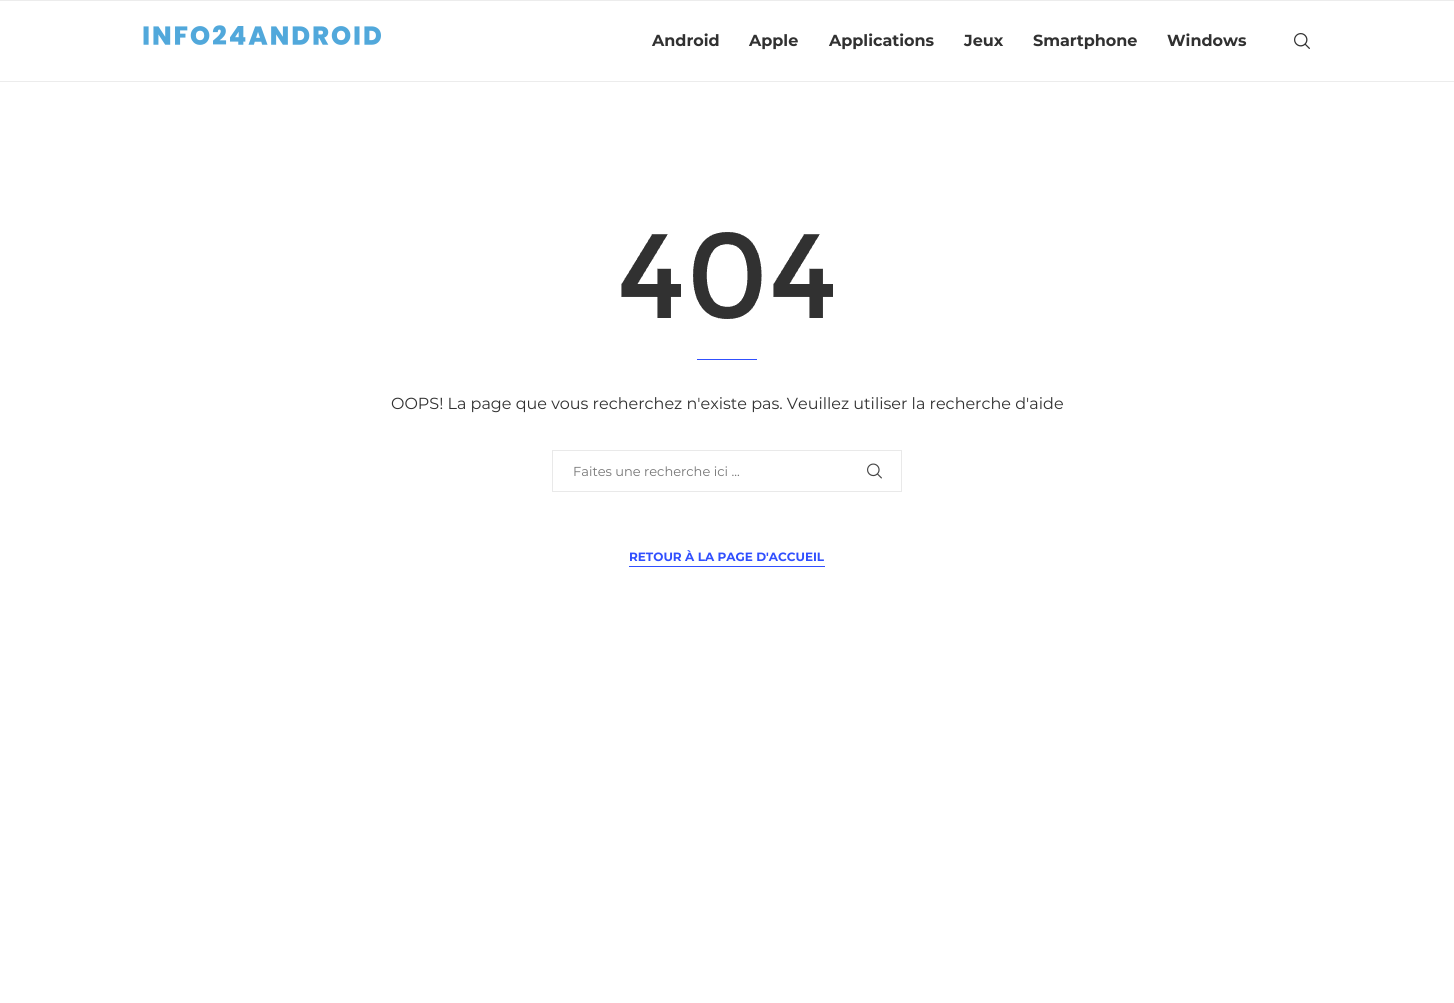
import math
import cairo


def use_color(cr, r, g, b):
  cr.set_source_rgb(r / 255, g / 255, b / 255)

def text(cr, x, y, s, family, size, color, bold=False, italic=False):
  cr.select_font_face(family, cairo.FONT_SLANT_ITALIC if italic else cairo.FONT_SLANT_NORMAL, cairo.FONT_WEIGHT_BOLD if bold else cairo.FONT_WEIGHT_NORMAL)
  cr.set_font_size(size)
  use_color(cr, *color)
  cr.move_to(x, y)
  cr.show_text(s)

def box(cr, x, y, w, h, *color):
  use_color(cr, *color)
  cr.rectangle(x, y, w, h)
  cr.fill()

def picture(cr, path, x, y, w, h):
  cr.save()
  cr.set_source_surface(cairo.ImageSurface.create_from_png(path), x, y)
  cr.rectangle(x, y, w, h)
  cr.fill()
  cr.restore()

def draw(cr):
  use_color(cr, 255, 255, 255)
  cr.paint()
  box(cr, 0, 0, 1454, 1, 236, 236, 236)
  box(cr, 0, 81, 1454, 1, 236, 236, 236)
  picture(cr, "img_01.png", 143, 25, 238, 20)
  picture(cr, "img_02.png", 1294, 33, 16, 16)
  picture(cr, "img_03.png", 621, 232, 212, 87)
  box(cr, 697, 359, 60, 1, 48, 79, 254)
  cr.rectangle(552.5, 450.5, 349, 41)
  use_color(cr, 233, 233, 233)
  cr.set_line_width(1)
  cr.stroke()
  picture(cr, "img_04.png", 867, 463, 15, 16)
  box(cr, 629, 566, 196, 1, 48, 79, 254)
  text(cr, 652, 46, "Android", "Montserrat", 16, (49, 49, 49), bold=True)
  text(cr, 749, 46, "Apple", "Montserrat", 16, (49, 49, 49), bold=True)
  text(cr, 829, 46, "Applications", "Montserrat", 16, (49, 49, 49), bold=True)
  text(cr, 964, 46, "Jeux", "Montserrat", 16, (49, 49, 49), bold=True)
  text(cr, 1033, 46, "Smartphone", "Montserrat", 16, (49, 49, 49), bold=True)
  text(cr, 1167, 46, "Windows", "Montserrat", 16, (49, 49, 49), bold=True)
  text(cr, 391, 409, "OOPS! La page que vous recherchez n'existe pas. Veuillez utiliser la recherche d'aide", "Montserrat", 16, (49, 49, 49))
  text(cr, 573, 476, "Faites une recherche ici ...", "Montserrat", 13, (117, 117, 117))
  text(cr, 629, 561, "RETOUR À LA PAGE D'ACCUEIL", "Montserrat", 12, (48, 79, 254), bold=True)


surface = cairo.ImageSurface(cairo.FORMAT_RGB24, 1454, 1003)
cr = cairo.Context(surface)
options = cairo.FontOptions()
options.set_hint_metrics(cairo.HINT_METRICS_OFF)
options.set_hint_style(cairo.HINT_STYLE_NONE)
cr.set_font_options(options)
cr.set_miter_limit(4)
draw(cr)
surface.write_to_png("out.png")
